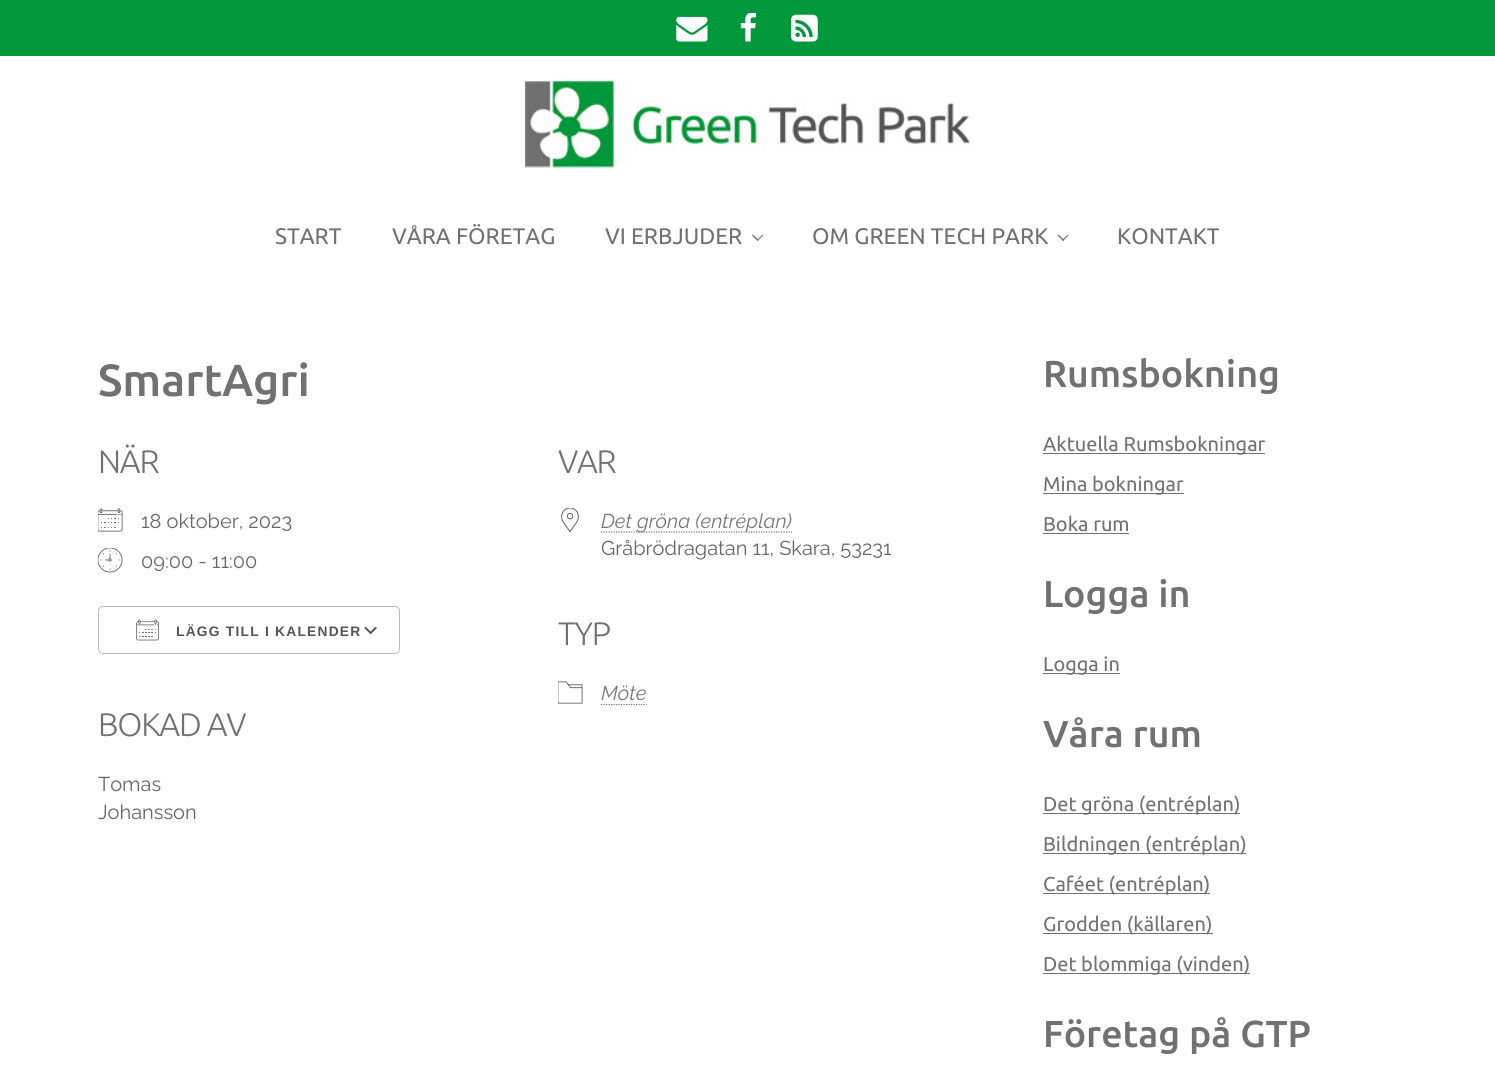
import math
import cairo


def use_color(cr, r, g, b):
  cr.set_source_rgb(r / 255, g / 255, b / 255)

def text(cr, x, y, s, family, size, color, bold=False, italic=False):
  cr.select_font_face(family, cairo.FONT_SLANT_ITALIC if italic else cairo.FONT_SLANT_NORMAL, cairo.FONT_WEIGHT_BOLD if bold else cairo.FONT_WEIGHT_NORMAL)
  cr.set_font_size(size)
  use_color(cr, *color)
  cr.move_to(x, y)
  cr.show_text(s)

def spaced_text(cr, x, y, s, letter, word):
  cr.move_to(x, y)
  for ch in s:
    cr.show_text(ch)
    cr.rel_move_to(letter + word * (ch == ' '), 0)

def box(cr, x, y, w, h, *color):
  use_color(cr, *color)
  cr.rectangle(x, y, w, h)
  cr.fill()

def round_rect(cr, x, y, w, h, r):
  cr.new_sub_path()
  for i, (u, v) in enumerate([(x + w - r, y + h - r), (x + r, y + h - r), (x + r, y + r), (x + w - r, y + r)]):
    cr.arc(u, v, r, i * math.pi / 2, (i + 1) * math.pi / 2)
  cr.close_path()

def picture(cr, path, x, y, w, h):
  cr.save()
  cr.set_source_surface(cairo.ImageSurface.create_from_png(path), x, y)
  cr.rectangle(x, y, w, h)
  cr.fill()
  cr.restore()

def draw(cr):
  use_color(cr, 255, 255, 255)
  cr.paint()
  box(cr, 0, 0, 1495, 56, 0, 152, 59)
  picture(cr, "img_01.png", 676, 16, 32, 26)
  picture(cr, "img_02.png", 740, 13, 16, 29)
  picture(cr, "img_03.png", 791, 14, 27, 28)
  picture(cr, "img_04.png", 525, 81, 445, 87)
  use_color(cr, 113, 113, 112)
  cr.new_path()
  cr.move_to(763, 235.5)
  cr.line_to(757.5, 241)
  cr.line_to(757, 240)
  cr.line_to(762.5, 234.5)
  cr.close_path()
  cr.fill()
  cr.new_path()
  cr.move_to(758.5, 240)
  cr.line_to(757.5, 241)
  cr.line_to(752, 235.5)
  cr.line_to(753, 234.5)
  cr.close_path()
  cr.fill()
  cr.new_path()
  cr.move_to(1068.5, 235.5)
  cr.line_to(1063, 241)
  cr.line_to(1062, 240)
  cr.line_to(1068, 234.5)
  cr.close_path()
  cr.fill()
  cr.new_path()
  cr.move_to(1064, 240)
  cr.line_to(1063, 241)
  cr.line_to(1057.5, 235.5)
  cr.line_to(1058.5, 234.5)
  cr.close_path()
  cr.fill()
  picture(cr, "img_05.png", 98, 508, 25, 24)
  picture(cr, "img_06.png", 98, 548, 25, 25)
  picture(cr, "img_07.png", 364, 627, 14, 8)
  round_rect(cr, 98.5, 606.5, 301, 47, 4.5)
  use_color(cr, 186, 186, 186)
  cr.set_line_width(1)
  cr.stroke()
  picture(cr, "img_08.png", 136, 619, 23, 22)
  picture(cr, "img_09.png", 561, 508, 18, 25)
  cr.new_path()
  cr.move_to(601, 532)
  cr.line_to(792, 532)
  use_color(cr, 120, 120, 120)
  cr.set_line_width(1.2)
  cr.set_dash([1.25, 1.25])
  cr.stroke()
  picture(cr, "img_10.png", 558, 681, 25, 23)
  cr.new_path()
  cr.move_to(601, 704.5)
  cr.line_to(646.5, 704.5)
  cr.stroke()
  box(cr, 1043, 453, 222, 1, 113, 113, 112)
  box(cr, 1043, 493, 141, 1, 113, 113, 112)
  box(cr, 1043, 533, 86, 1, 113, 113, 112)
  box(cr, 1043, 673, 77, 1, 113, 113, 112)
  box(cr, 1043, 813, 197, 1, 113, 113, 112)
  box(cr, 1043, 853, 203, 1, 113, 113, 112)
  box(cr, 1043, 893, 167, 1, 113, 113, 112)
  box(cr, 1043, 933, 170, 1, 113, 113, 112)
  box(cr, 1043, 973, 207, 1, 113, 113, 112)
  text(cr, 275, 244, "START", "Ubuntu", 22.5, (113, 113, 112))
  text(cr, 392, 244, "VÅRA FÖRETAG", "Ubuntu", 22.5, (113, 113, 112))
  text(cr, 605, 244, "VI ERBJUDER", "Ubuntu", 22.5, (113, 113, 112))
  text(cr, 812, 244, "OM GREEN TECH PARK", "Ubuntu", 22.5, (113, 113, 112))
  text(cr, 1117, 244, "KONTAKT", "Ubuntu", 22.5, (113, 113, 112))
  text(cr, 98, 396, "SmartAgri", "Ubuntu Medium", 45, (113, 113, 112))
  cr.select_font_face("Ubuntu Light")
  cr.set_font_size(32.5)
  spaced_text(cr, 98, 473, "NÄR", -1.25, 0)
  text(cr, 141, 528, "18 oktober, 2023", "Raleway", 20, (102, 102, 102))
  text(cr, 141, 568, "09:00 - 11:00", "Raleway", 20, (102, 102, 102))
  cr.select_font_face("Liberation Sans", cairo.FONT_SLANT_NORMAL, cairo.FONT_WEIGHT_BOLD)
  cr.set_font_size(13.75)
  use_color(cr, 84, 84, 84)
  spaced_text(cr, 176, 636, "LÄGG TILL I KALENDER", 1.25, 0)
  cr.select_font_face("Ubuntu Light")
  cr.set_font_size(32.5)
  use_color(cr, 113, 113, 112)
  spaced_text(cr, 98, 736, "BOKAD AV", -1.25, 0)
  text(cr, 98, 791, "Tomas", "Raleway", 20, (102, 102, 102))
  text(cr, 98, 819, "Johansson", "Raleway", 20, (102, 102, 102))
  cr.select_font_face("Ubuntu Light")
  cr.set_font_size(32.5)
  use_color(cr, 113, 113, 112)
  spaced_text(cr, 558, 473, "VAR", -1.25, 0)
  text(cr, 601, 528, "Det gröna (entréplan)", "Raleway", 20, (120, 120, 120), italic=True)
  text(cr, 601, 555, "Gråbrödragatan 11, Skara, 53231", "Raleway", 20, (102, 102, 102))
  cr.select_font_face("Ubuntu Light")
  cr.set_font_size(32.5)
  use_color(cr, 113, 113, 112)
  spaced_text(cr, 558, 645, "TYP", -1.25, 0)
  text(cr, 601, 700, "Möte", "Raleway", 20, (120, 120, 120), italic=True)
  text(cr, 1043, 387, "Rumsbokning", "Ubuntu Medium", 37.5, (113, 113, 112))
  text(cr, 1043, 451, "Aktuella Rumsbokningar", "Ubuntu", 20, (113, 113, 112))
  text(cr, 1043, 491, "Mina bokningar", "Ubuntu", 20, (113, 113, 112))
  text(cr, 1043, 531, "Boka rum", "Ubuntu", 20, (113, 113, 112))
  text(cr, 1043, 607, "Logga in", "Ubuntu Medium", 37.5, (113, 113, 112))
  text(cr, 1043, 671, "Logga in", "Ubuntu", 20, (113, 113, 112))
  text(cr, 1043, 747, "Våra rum", "Ubuntu Medium", 37.5, (113, 113, 112))
  text(cr, 1043, 811, "Det gröna (entréplan)", "Ubuntu", 20, (113, 113, 112))
  text(cr, 1043, 851, "Bildningen (entréplan)", "Ubuntu", 20, (113, 113, 112))
  text(cr, 1043, 891, "Caféet (entréplan)", "Ubuntu", 20, (113, 113, 112))
  text(cr, 1043, 931, "Grodden (källaren)", "Ubuntu", 20, (113, 113, 112))
  text(cr, 1043, 971, "Det blommiga (vinden)", "Ubuntu", 20, (113, 113, 112))
  text(cr, 1043, 1047, "Företag på GTP", "Ubuntu Medium", 37.5, (113, 113, 112))


surface = cairo.ImageSurface(cairo.FORMAT_RGB24, 1495, 1086)
cr = cairo.Context(surface)
options = cairo.FontOptions()
options.set_hint_metrics(cairo.HINT_METRICS_OFF)
options.set_hint_style(cairo.HINT_STYLE_NONE)
cr.set_font_options(options)
cr.set_miter_limit(4)
draw(cr)
surface.write_to_png("out.png")
